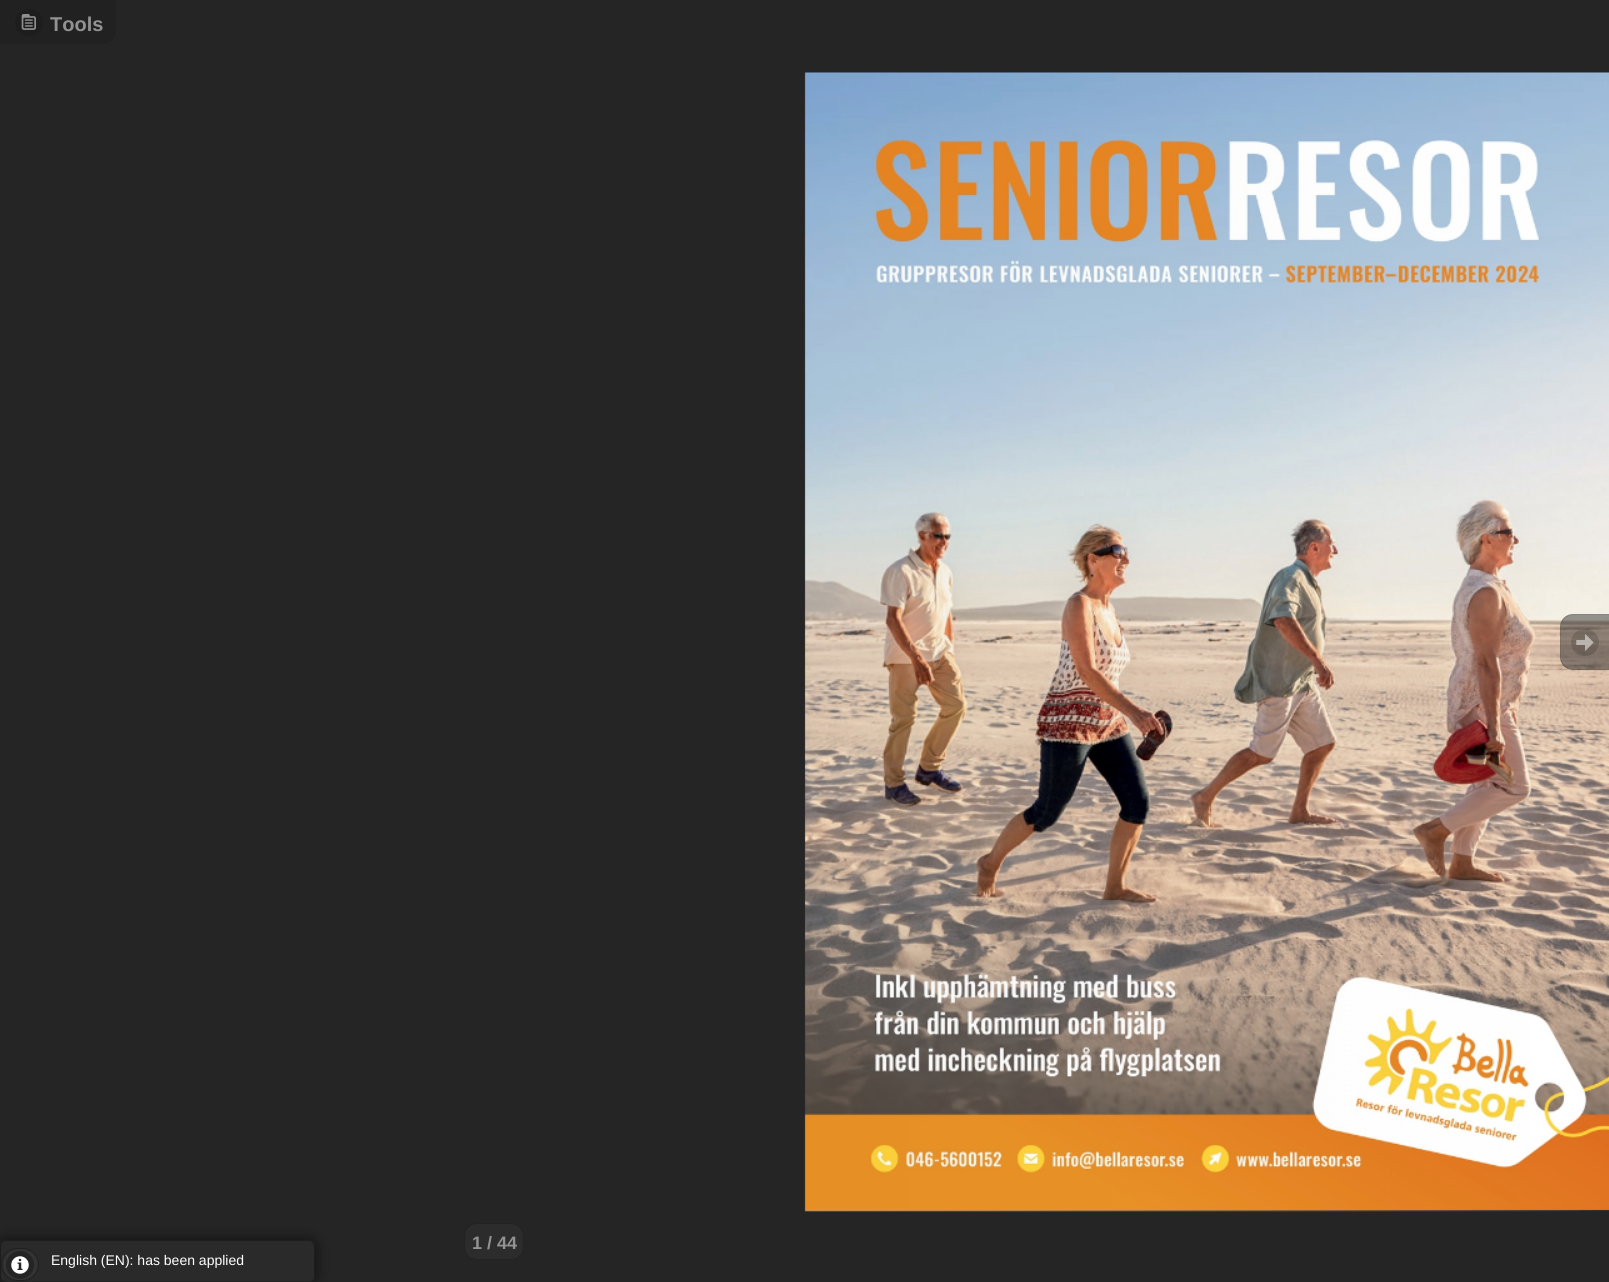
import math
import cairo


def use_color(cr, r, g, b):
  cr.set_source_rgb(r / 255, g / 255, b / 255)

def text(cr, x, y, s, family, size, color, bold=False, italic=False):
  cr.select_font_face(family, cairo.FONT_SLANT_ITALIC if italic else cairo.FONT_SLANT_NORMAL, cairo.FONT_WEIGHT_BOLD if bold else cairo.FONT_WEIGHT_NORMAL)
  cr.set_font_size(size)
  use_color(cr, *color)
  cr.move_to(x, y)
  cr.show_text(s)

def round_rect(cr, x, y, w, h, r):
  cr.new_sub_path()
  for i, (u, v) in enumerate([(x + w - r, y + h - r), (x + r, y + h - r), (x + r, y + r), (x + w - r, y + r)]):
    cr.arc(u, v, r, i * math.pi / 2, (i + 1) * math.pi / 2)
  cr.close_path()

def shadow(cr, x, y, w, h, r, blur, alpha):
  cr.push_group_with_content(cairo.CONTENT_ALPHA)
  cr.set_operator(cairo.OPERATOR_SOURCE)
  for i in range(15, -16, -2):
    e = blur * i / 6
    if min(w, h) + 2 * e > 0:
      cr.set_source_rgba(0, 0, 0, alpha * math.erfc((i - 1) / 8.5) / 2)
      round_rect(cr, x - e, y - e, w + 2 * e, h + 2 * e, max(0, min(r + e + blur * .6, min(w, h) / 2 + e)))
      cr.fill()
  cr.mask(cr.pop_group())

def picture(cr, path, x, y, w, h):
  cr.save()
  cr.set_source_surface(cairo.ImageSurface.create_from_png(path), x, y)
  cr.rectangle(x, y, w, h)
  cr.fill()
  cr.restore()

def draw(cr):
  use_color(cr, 37, 37, 37)
  cr.paint()
  use_color(cr, 33, 33, 33)
  cr.new_path()
  cr.move_to(0, 0)
  cr.line_to(116, 0)
  cr.line_to(116, 31)
  cr.curve_to(116, 38, 110, 44, 103, 44)
  cr.line_to(0, 44)
  cr.close_path()
  cr.fill()
  use_color(cr, 29, 29, 29)
  round_rect(cr, 15, 9, 28, 27, 13.5)
  cr.fill()
  picture(cr, "img_01.png", 21, 14, 15, 16)
  picture(cr, "img_02.png", 804, 72, 805, 1140)
  cr.set_source_rgba(0.2, 0.2, 0.2, 0.5)
  cr.new_path()
  cr.move_to(1572, 615)
  cr.line_to(1609, 615)
  cr.line_to(1609, 669)
  cr.line_to(1572, 669)
  cr.curve_to(1566, 669, 1561, 664, 1561, 658)
  cr.line_to(1561, 626)
  cr.curve_to(1561, 620, 1566, 615, 1572, 615)
  cr.close_path()
  cr.fill()
  cr.new_path()
  cr.move_to(1573, 614.5)
  cr.line_to(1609.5, 614.5)
  cr.line_to(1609.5, 669.5)
  cr.line_to(1573, 669.5)
  cr.curve_to(1566, 669.5, 1560.5, 664, 1560.5, 657)
  cr.line_to(1560.5, 627)
  cr.curve_to(1560.5, 620, 1566, 614.5, 1573, 614.5)
  cr.close_path()
  cr.set_source_rgba(0.122, 0.122, 0.122, 0.5)
  cr.set_line_width(1)
  cr.stroke()
  cr.set_source_rgba(0, 0, 0, 0.15)
  round_rect(cr, 1571, 629, 28, 27, 13.5)
  cr.fill()
  picture(cr, "img_03.png", 1576, 634, 18, 17)
  use_color(cr, 44, 44, 44)
  round_rect(cr, 464.5, 1223.5, 59, 36, 12.5)
  cr.fill_preserve()
  use_color(cr, 34, 34, 34)
  cr.stroke()
  cr.save()
  cr.set_fill_rule(cairo.FILL_RULE_EVEN_ODD)
  cr.new_path()
  cr.move_to(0, 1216)
  cr.line_to(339, 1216)
  cr.line_to(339, 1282)
  cr.line_to(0, 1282)
  cr.close_path()
  cr.move_to(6, 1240)
  cr.line_to(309, 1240)
  cr.curve_to(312.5, 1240, 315, 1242.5, 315, 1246)
  cr.line_to(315, 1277)
  cr.curve_to(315, 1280.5, 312.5, 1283, 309, 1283)
  cr.line_to(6, 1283)
  cr.curve_to(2.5, 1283, 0, 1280.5, 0, 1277)
  cr.line_to(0, 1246)
  cr.curve_to(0, 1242.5, 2.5, 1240, 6, 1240)
  cr.close_path()
  cr.clip()
  use_color(cr, 0, 0, 0)
  shadow(cr, 0, 1240, 315, 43, 6, 7.5, 0.6)
  cr.restore()
  use_color(cr, 42, 42, 42)
  round_rect(cr, 1, 1241, 313, 40, 5)
  cr.fill()
  round_rect(cr, 0.5, 1240.5, 314, 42, 5.5)
  use_color(cr, 29, 29, 29)
  cr.stroke()
  use_color(cr, 51, 51, 51)
  round_rect(cr, 3, 1249, 35, 31, 15.5)
  cr.fill()
  round_rect(cr, 1.5, 1248.5, 37, 32, 16)
  use_color(cr, 31, 31, 31)
  cr.stroke()
  use_color(cr, 36, 36, 36)
  cr.arc(20, 1265, 14, 0, 2 * math.pi)
  cr.fill()
  picture(cr, "img_04.png", 11, 1256, 18, 18)
  text(cr, 50, 31, "Tools", "Liberation Sans", 20, (146, 146, 146), bold=True)
  text(cr, 472, 1249, "1 / 44", "Liberation Sans", 18, (146, 146, 146), bold=True)
  text(cr, 51, 1265, "English (EN): has been applied", "Liberation Sans", 14, (255, 255, 255))


surface = cairo.ImageSurface(cairo.FORMAT_RGB24, 1609, 1282)
cr = cairo.Context(surface)
options = cairo.FontOptions()
options.set_hint_metrics(cairo.HINT_METRICS_OFF)
options.set_hint_style(cairo.HINT_STYLE_NONE)
cr.set_font_options(options)
cr.set_miter_limit(4)
draw(cr)
surface.write_to_png("out.png")
